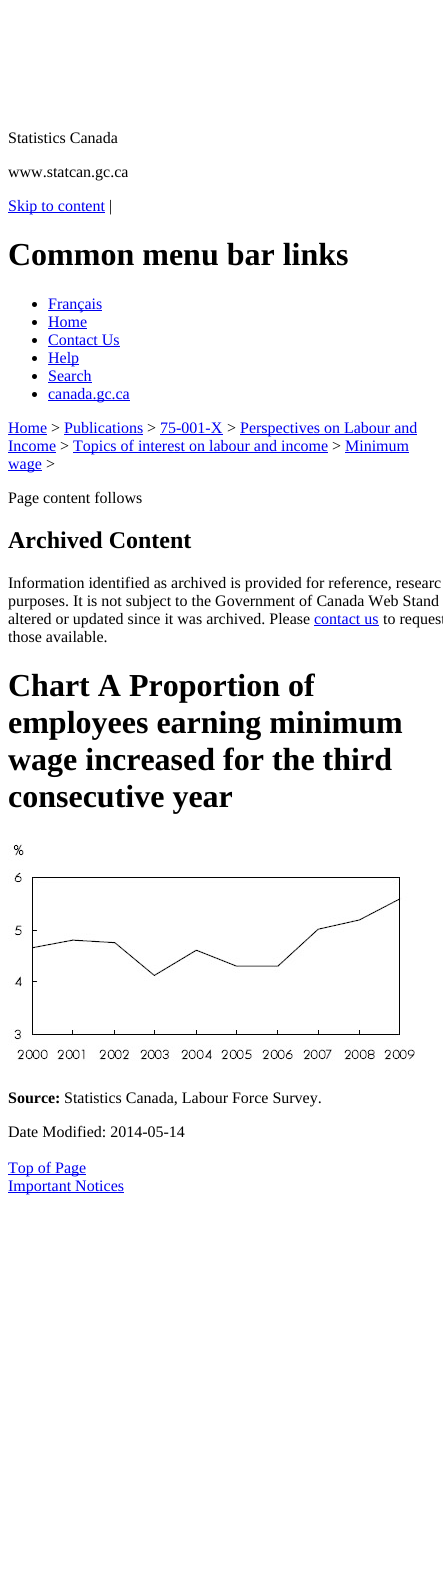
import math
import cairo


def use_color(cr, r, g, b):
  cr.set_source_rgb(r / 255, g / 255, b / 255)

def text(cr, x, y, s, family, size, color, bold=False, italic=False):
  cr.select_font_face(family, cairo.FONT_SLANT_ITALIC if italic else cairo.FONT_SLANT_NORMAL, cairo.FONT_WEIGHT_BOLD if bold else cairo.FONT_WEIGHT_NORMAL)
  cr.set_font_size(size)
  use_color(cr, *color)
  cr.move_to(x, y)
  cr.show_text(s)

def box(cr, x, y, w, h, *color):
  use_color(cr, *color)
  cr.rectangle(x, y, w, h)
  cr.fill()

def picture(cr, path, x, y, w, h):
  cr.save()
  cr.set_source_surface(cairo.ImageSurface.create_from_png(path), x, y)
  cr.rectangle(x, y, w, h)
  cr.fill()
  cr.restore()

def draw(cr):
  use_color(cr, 255, 255, 255)
  cr.paint()
  box(cr, 8, 212, 97, 1, 0, 0, 238)
  use_color(cr, 0, 0, 0)
  cr.arc(34.5, 304.5, 2.5, 0, 2 * math.pi)
  cr.fill()
  box(cr, 48, 310, 54, 1, 0, 0, 238)
  use_color(cr, 0, 0, 0)
  cr.arc(34.5, 322.5, 2.5, 0, 2 * math.pi)
  cr.fill()
  box(cr, 48, 328, 39, 1, 0, 0, 238)
  use_color(cr, 0, 0, 0)
  cr.arc(34.5, 340.5, 2.5, 0, 2 * math.pi)
  cr.fill()
  box(cr, 48, 346, 72, 1, 0, 0, 238)
  use_color(cr, 0, 0, 0)
  cr.arc(34.5, 358.5, 2.5, 0, 2 * math.pi)
  cr.fill()
  box(cr, 48, 364, 31, 1, 0, 0, 238)
  use_color(cr, 0, 0, 0)
  cr.arc(34.5, 376.5, 2.5, 0, 2 * math.pi)
  cr.fill()
  box(cr, 48, 382, 44, 1, 0, 0, 238)
  use_color(cr, 0, 0, 0)
  cr.arc(34.5, 394.5, 2.5, 0, 2 * math.pi)
  cr.fill()
  box(cr, 48, 400, 82, 1, 0, 0, 238)
  box(cr, 8, 434, 39, 1, 0, 0, 238)
  box(cr, 64, 434, 79, 1, 0, 0, 238)
  box(cr, 160, 434, 63, 1, 0, 0, 238)
  box(cr, 240, 434, 177, 1, 0, 0, 238)
  box(cr, 8, 452, 48, 1, 0, 0, 238)
  box(cr, 73, 452, 255, 1, 0, 0, 238)
  box(cr, 345, 452, 64, 1, 0, 0, 238)
  box(cr, 8, 470, 34, 1, 0, 0, 238)
  box(cr, 314, 625, 65, 1, 0, 0, 238)
  picture(cr, "img_01.png", 8, 843, 407, 218)
  box(cr, 8, 1174, 78, 1, 0, 0, 238)
  box(cr, 8, 1192, 116, 1, 0, 0, 238)
  text(cr, 8, 143, "Statistics Canada", "Liberation Serif", 16, (0, 0, 0))
  text(cr, 8, 177, "www.statcan.gc.ca", "Liberation Serif", 16, (0, 0, 0))
  text(cr, 8, 211, "Skip to content", "Liberation Serif", 16, (0, 0, 238))
  text(cr, 109, 211, "|", "Liberation Serif", 16, (0, 0, 0))
  text(cr, 8, 265, "Common menu bar links", "Liberation Serif", 32, (0, 0, 0), bold=True)
  text(cr, 48, 309, "Français", "Liberation Serif", 16, (0, 0, 238))
  text(cr, 48, 327, "Home", "Liberation Serif", 16, (0, 0, 238))
  text(cr, 48, 345, "Contact Us", "Liberation Serif", 16, (0, 0, 238))
  text(cr, 48, 363, "Help", "Liberation Serif", 16, (0, 0, 238))
  text(cr, 48, 381, "Search", "Liberation Serif", 16, (0, 0, 238))
  text(cr, 48, 399, "canada.gc.ca", "Liberation Serif", 16, (0, 0, 238))
  text(cr, 8, 433, "Home", "Liberation Serif", 16, (0, 0, 238))
  text(cr, 51, 433, ">", "Liberation Serif", 16, (0, 0, 0))
  text(cr, 64, 433, "Publications", "Liberation Serif", 16, (0, 0, 238))
  text(cr, 147, 433, ">", "Liberation Serif", 16, (0, 0, 0))
  text(cr, 160, 433, "75-001-X", "Liberation Serif", 16, (0, 0, 238))
  text(cr, 227, 433, ">", "Liberation Serif", 16, (0, 0, 0))
  text(cr, 240, 433, "Perspectives on Labour and", "Liberation Serif", 16, (0, 0, 238))
  text(cr, 8, 451, "Income", "Liberation Serif", 16, (0, 0, 238))
  text(cr, 60, 451, ">", "Liberation Serif", 16, (0, 0, 0))
  text(cr, 73, 451, "Topics of interest on labour and income", "Liberation Serif", 16, (0, 0, 238))
  text(cr, 332, 451, ">", "Liberation Serif", 16, (0, 0, 0))
  text(cr, 345, 451, "Minimum", "Liberation Serif", 16, (0, 0, 238))
  text(cr, 8, 469, "wage", "Liberation Serif", 16, (0, 0, 238))
  text(cr, 46, 469, ">", "Liberation Serif", 16, (0, 0, 0))
  text(cr, 8, 503, "Page content follows", "Liberation Serif", 16, (0, 0, 0))
  text(cr, 8, 548, "Archived Content", "Liberation Serif", 24, (0, 0, 0), bold=True)
  text(cr, 8, 588, "Information identified as archived is provided for reference, researc", "Liberation Serif", 16, (0, 0, 0))
  text(cr, 8, 606, "purposes. It is not subject to the Government of Canada Web Stand", "Liberation Serif", 16, (0, 0, 0))
  text(cr, 8, 624, "altered or updated since it was archived. Please", "Liberation Serif", 16, (0, 0, 0))
  text(cr, 314, 624, "contact us", "Liberation Serif", 16, (0, 0, 238))
  text(cr, 383, 624, "to request", "Liberation Serif", 16, (0, 0, 0))
  text(cr, 8, 642, "those available.", "Liberation Serif", 16, (0, 0, 0))
  text(cr, 8, 696, "Chart A Proportion of", "Liberation Serif", 32, (0, 0, 0), bold=True)
  text(cr, 8, 733, "employees earning minimum", "Liberation Serif", 32, (0, 0, 0), bold=True)
  text(cr, 8, 770, "wage increased for the third", "Liberation Serif", 32, (0, 0, 0), bold=True)
  text(cr, 8, 807, "consecutive year", "Liberation Serif", 32, (0, 0, 0), bold=True)
  text(cr, 8, 1103, "Source:", "Liberation Serif", 16, (0, 0, 0), bold=True)
  text(cr, 64, 1103, "Statistics Canada, Labour Force Survey.", "Liberation Serif", 16, (0, 0, 0))
  text(cr, 8, 1137, "Date Modified: 2014-05-14", "Liberation Serif", 16, (0, 0, 0))
  text(cr, 8, 1173, "Top of Page", "Liberation Serif", 16, (0, 0, 238))
  text(cr, 8, 1191, "Important Notices", "Liberation Serif", 16, (0, 0, 238))


surface = cairo.ImageSurface(cairo.FORMAT_RGB24, 443, 1574)
cr = cairo.Context(surface)
options = cairo.FontOptions()
options.set_hint_metrics(cairo.HINT_METRICS_OFF)
options.set_hint_style(cairo.HINT_STYLE_NONE)
cr.set_font_options(options)
cr.set_miter_limit(4)
draw(cr)
surface.write_to_png("out.png")
